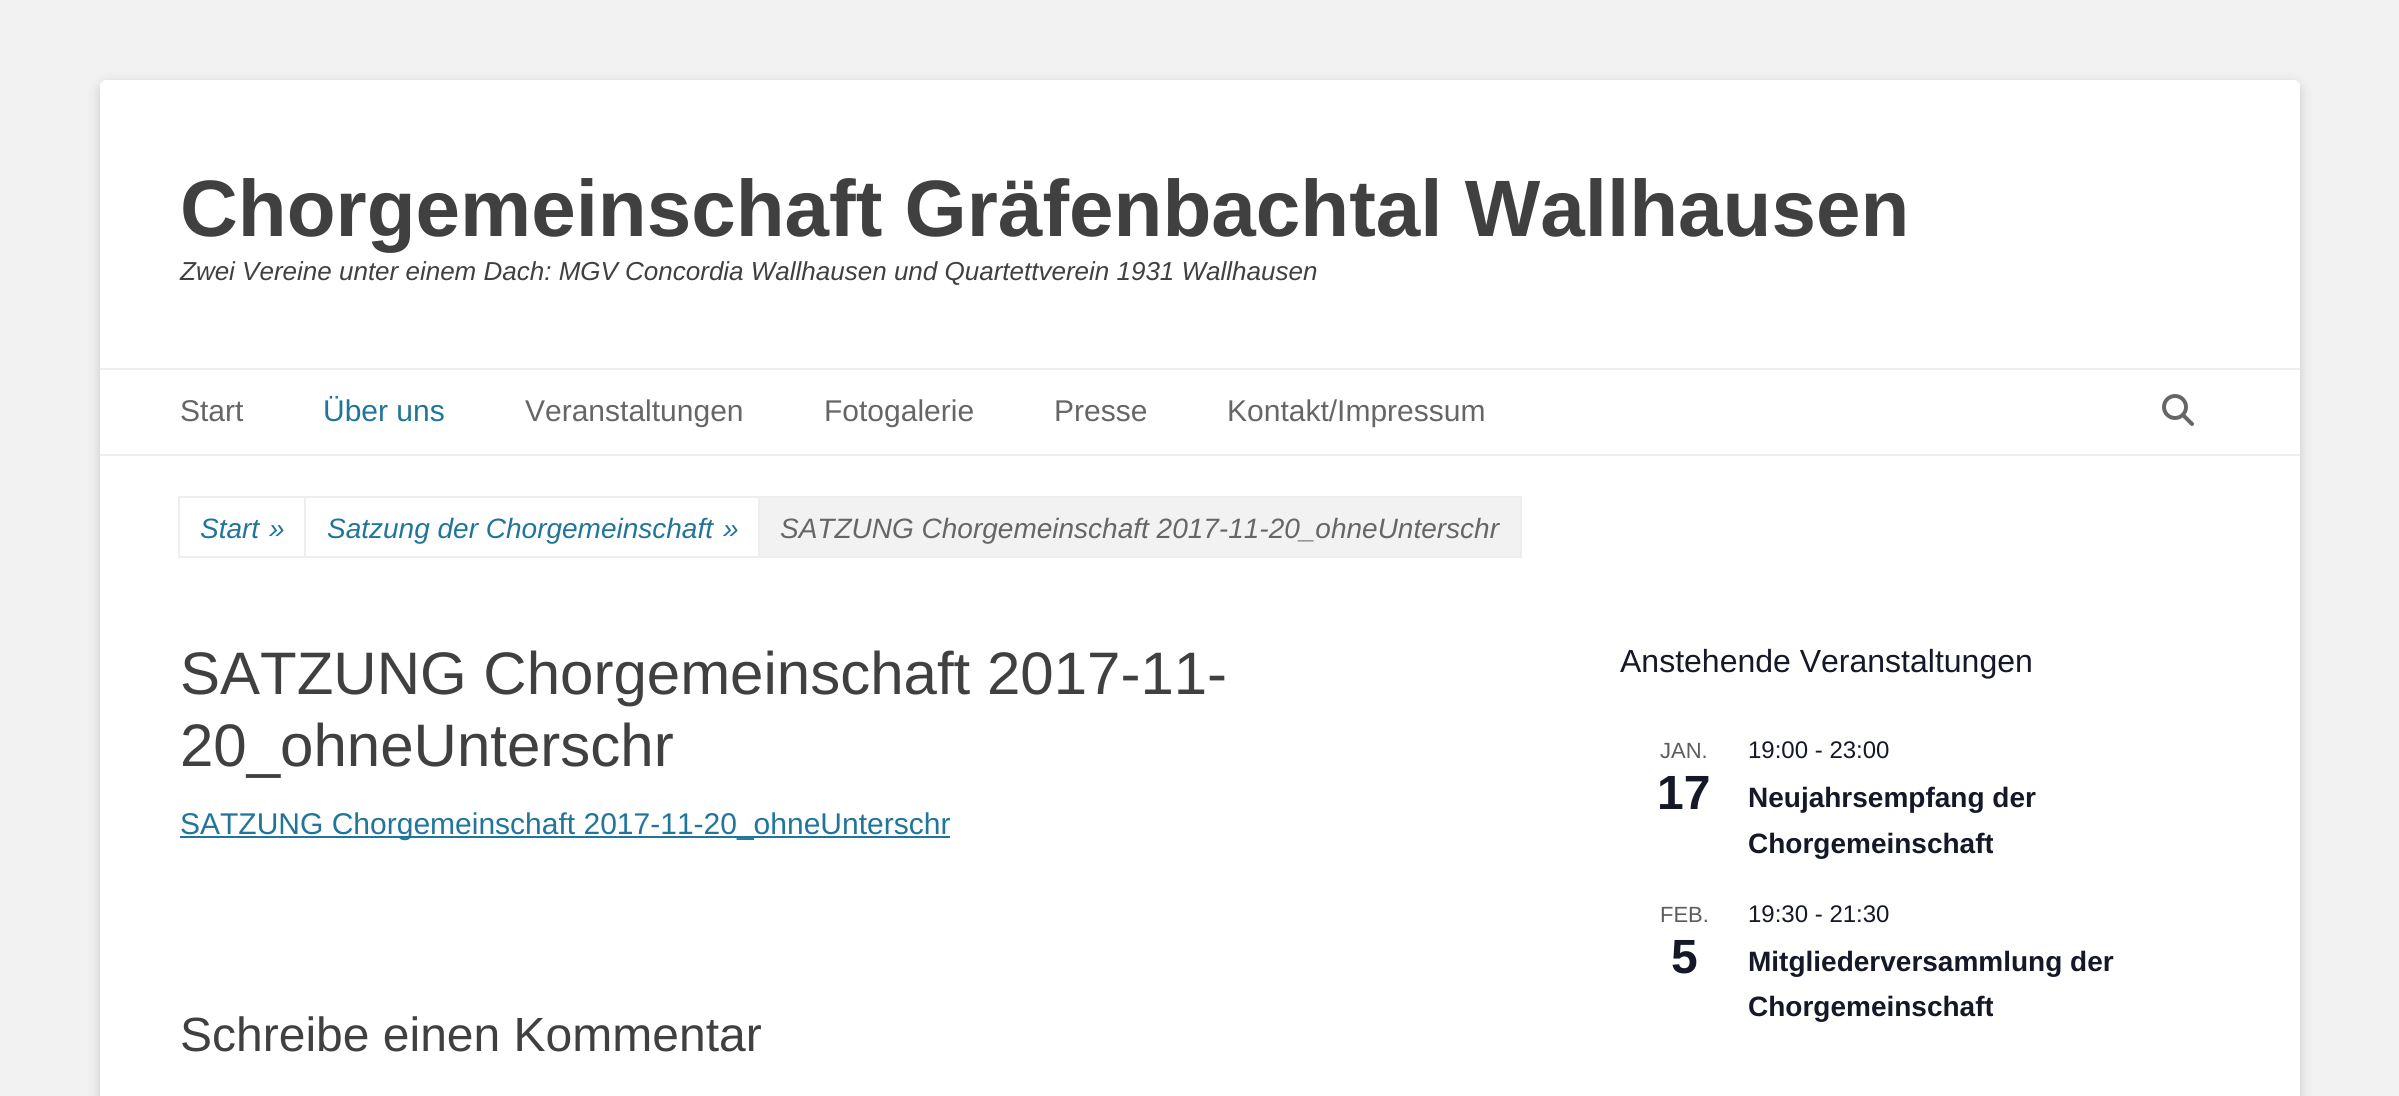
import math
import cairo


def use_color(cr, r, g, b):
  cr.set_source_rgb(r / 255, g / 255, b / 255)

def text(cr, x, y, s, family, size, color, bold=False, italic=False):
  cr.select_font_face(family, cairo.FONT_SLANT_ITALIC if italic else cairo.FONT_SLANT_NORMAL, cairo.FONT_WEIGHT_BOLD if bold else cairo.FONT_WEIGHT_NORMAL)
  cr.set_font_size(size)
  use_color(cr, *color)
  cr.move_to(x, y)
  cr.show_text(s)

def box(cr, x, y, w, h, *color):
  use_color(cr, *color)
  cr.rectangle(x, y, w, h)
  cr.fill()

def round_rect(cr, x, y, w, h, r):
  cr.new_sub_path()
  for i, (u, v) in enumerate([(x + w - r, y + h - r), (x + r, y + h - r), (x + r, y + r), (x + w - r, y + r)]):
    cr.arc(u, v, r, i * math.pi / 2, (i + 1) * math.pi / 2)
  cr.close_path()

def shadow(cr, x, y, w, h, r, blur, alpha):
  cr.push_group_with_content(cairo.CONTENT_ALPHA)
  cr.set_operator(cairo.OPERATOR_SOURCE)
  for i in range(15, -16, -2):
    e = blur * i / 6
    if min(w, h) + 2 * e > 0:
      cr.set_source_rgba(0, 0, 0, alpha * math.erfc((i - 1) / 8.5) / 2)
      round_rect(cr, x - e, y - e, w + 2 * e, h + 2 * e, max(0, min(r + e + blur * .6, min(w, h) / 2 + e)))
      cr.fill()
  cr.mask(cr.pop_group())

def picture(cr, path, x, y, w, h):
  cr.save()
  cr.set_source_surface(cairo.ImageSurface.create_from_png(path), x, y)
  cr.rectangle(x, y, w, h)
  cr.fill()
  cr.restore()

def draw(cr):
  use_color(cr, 242, 242, 242)
  cr.paint()
  use_color(cr, 100, 100, 100)
  shadow(cr, 100, 84, 2200, 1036, 6, 6, 0.3)
  use_color(cr, 255, 255, 255)
  round_rect(cr, 100, 80, 2200, 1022, 6)
  cr.fill()
  box(cr, 100, 368, 2200, 2, 238, 238, 238)
  box(cr, 100, 454, 2200, 2, 238, 238, 238)
  picture(cr, "img_01.png", 2162, 394, 32, 32)
  cr.rectangle(179, 497, 126, 60)
  cr.stroke()
  cr.rectangle(305, 497, 454, 60)
  cr.stroke()
  use_color(cr, 242, 242, 242)
  cr.rectangle(759, 497, 762, 60)
  cr.fill_preserve()
  use_color(cr, 238, 238, 238)
  cr.stroke()
  box(cr, 180, 836, 770, 2, 33, 117, 155)
  text(cr, 180, 236, "Chorgemeinschaft Gräfenbachtal Wallhausen", "Liberation Sans", 80, (64, 64, 64), bold=True)
  text(cr, 180, 280, "Zwei Vereine unter einem Dach: MGV Concordia Wallhausen und Quartettverein 1931 Wallhausen", "Liberation Sans", 26, (64, 64, 64), italic=True)
  text(cr, 180, 421, "Start", "Liberation Sans", 30, (102, 102, 102))
  text(cr, 323, 421, "Über uns", "Liberation Sans", 30, (33, 117, 155))
  text(cr, 525, 421, "Veranstaltungen", "Liberation Sans", 30, (102, 102, 102))
  text(cr, 824, 421, "Fotogalerie", "Liberation Sans", 30, (102, 102, 102))
  text(cr, 1054, 421, "Presse", "Liberation Sans", 30, (102, 102, 102))
  text(cr, 1227, 421, "Kontakt/Impressum", "Liberation Sans", 30, (102, 102, 102))
  text(cr, 200, 538, "Start", "Liberation Sans", 28, (33, 117, 155), italic=True)
  text(cr, 269, 538, "»", "Liberation Sans", 28, (33, 117, 155), italic=True)
  text(cr, 327, 538, "Satzung der Chorgemeinschaft", "Liberation Sans", 28, (33, 117, 155), italic=True)
  text(cr, 723, 538, "»", "Liberation Sans", 28, (33, 117, 155), italic=True)
  text(cr, 780, 538, "SATZUNG Chorgemeinschaft 2017-11-20_ohneUnterschr", "Liberation Sans", 28, (102, 102, 102), italic=True)
  text(cr, 180, 694, "SATZUNG Chorgemeinschaft 2017-11-", "Liberation Sans", 60, (64, 64, 64))
  text(cr, 180, 766, "20_ohneUnterschr", "Liberation Sans", 60, (64, 64, 64))
  text(cr, 180, 834, "SATZUNG Chorgemeinschaft 2017-11-20_ohneUnterschr", "Liberation Sans", 30, (33, 117, 155))
  text(cr, 180, 1051, "Schreibe einen Kommentar", "Liberation Sans", 48, (64, 64, 64))
  text(cr, 1620, 672, "Anstehende Veranstaltungen", "Liberation Sans", 32, (20, 24, 39))
  text(cr, 1660, 758, "JAN.", "Liberation Sans", 22, (93, 93, 93))
  text(cr, 1657, 809, "17", "Liberation Sans", 48, (20, 24, 39), bold=True)
  text(cr, 1748, 758, "19:00 - 23:00", "Liberation Sans", 24, (20, 24, 39))
  text(cr, 1748, 807, "Neujahrsempfang der", "Liberation Sans", 28, (20, 24, 39), bold=True)
  text(cr, 1748, 853, "Chorgemeinschaft", "Liberation Sans", 28, (20, 24, 39), bold=True)
  text(cr, 1660, 922, "FEB.", "Liberation Sans", 22, (93, 93, 93))
  text(cr, 1671, 973, "5", "Liberation Sans", 48, (20, 24, 39), bold=True)
  text(cr, 1748, 922, "19:30 - 21:30", "Liberation Sans", 24, (20, 24, 39))
  text(cr, 1748, 971, "Mitgliederversammlung der", "Liberation Sans", 28, (20, 24, 39), bold=True)
  text(cr, 1748, 1016, "Chorgemeinschaft", "Liberation Sans", 28, (20, 24, 39), bold=True)


surface = cairo.ImageSurface(cairo.FORMAT_RGB24, 2399, 1096)
cr = cairo.Context(surface)
options = cairo.FontOptions()
options.set_hint_metrics(cairo.HINT_METRICS_OFF)
options.set_hint_style(cairo.HINT_STYLE_NONE)
cr.set_font_options(options)
cr.set_miter_limit(4)
draw(cr)
surface.write_to_png("out.png")
